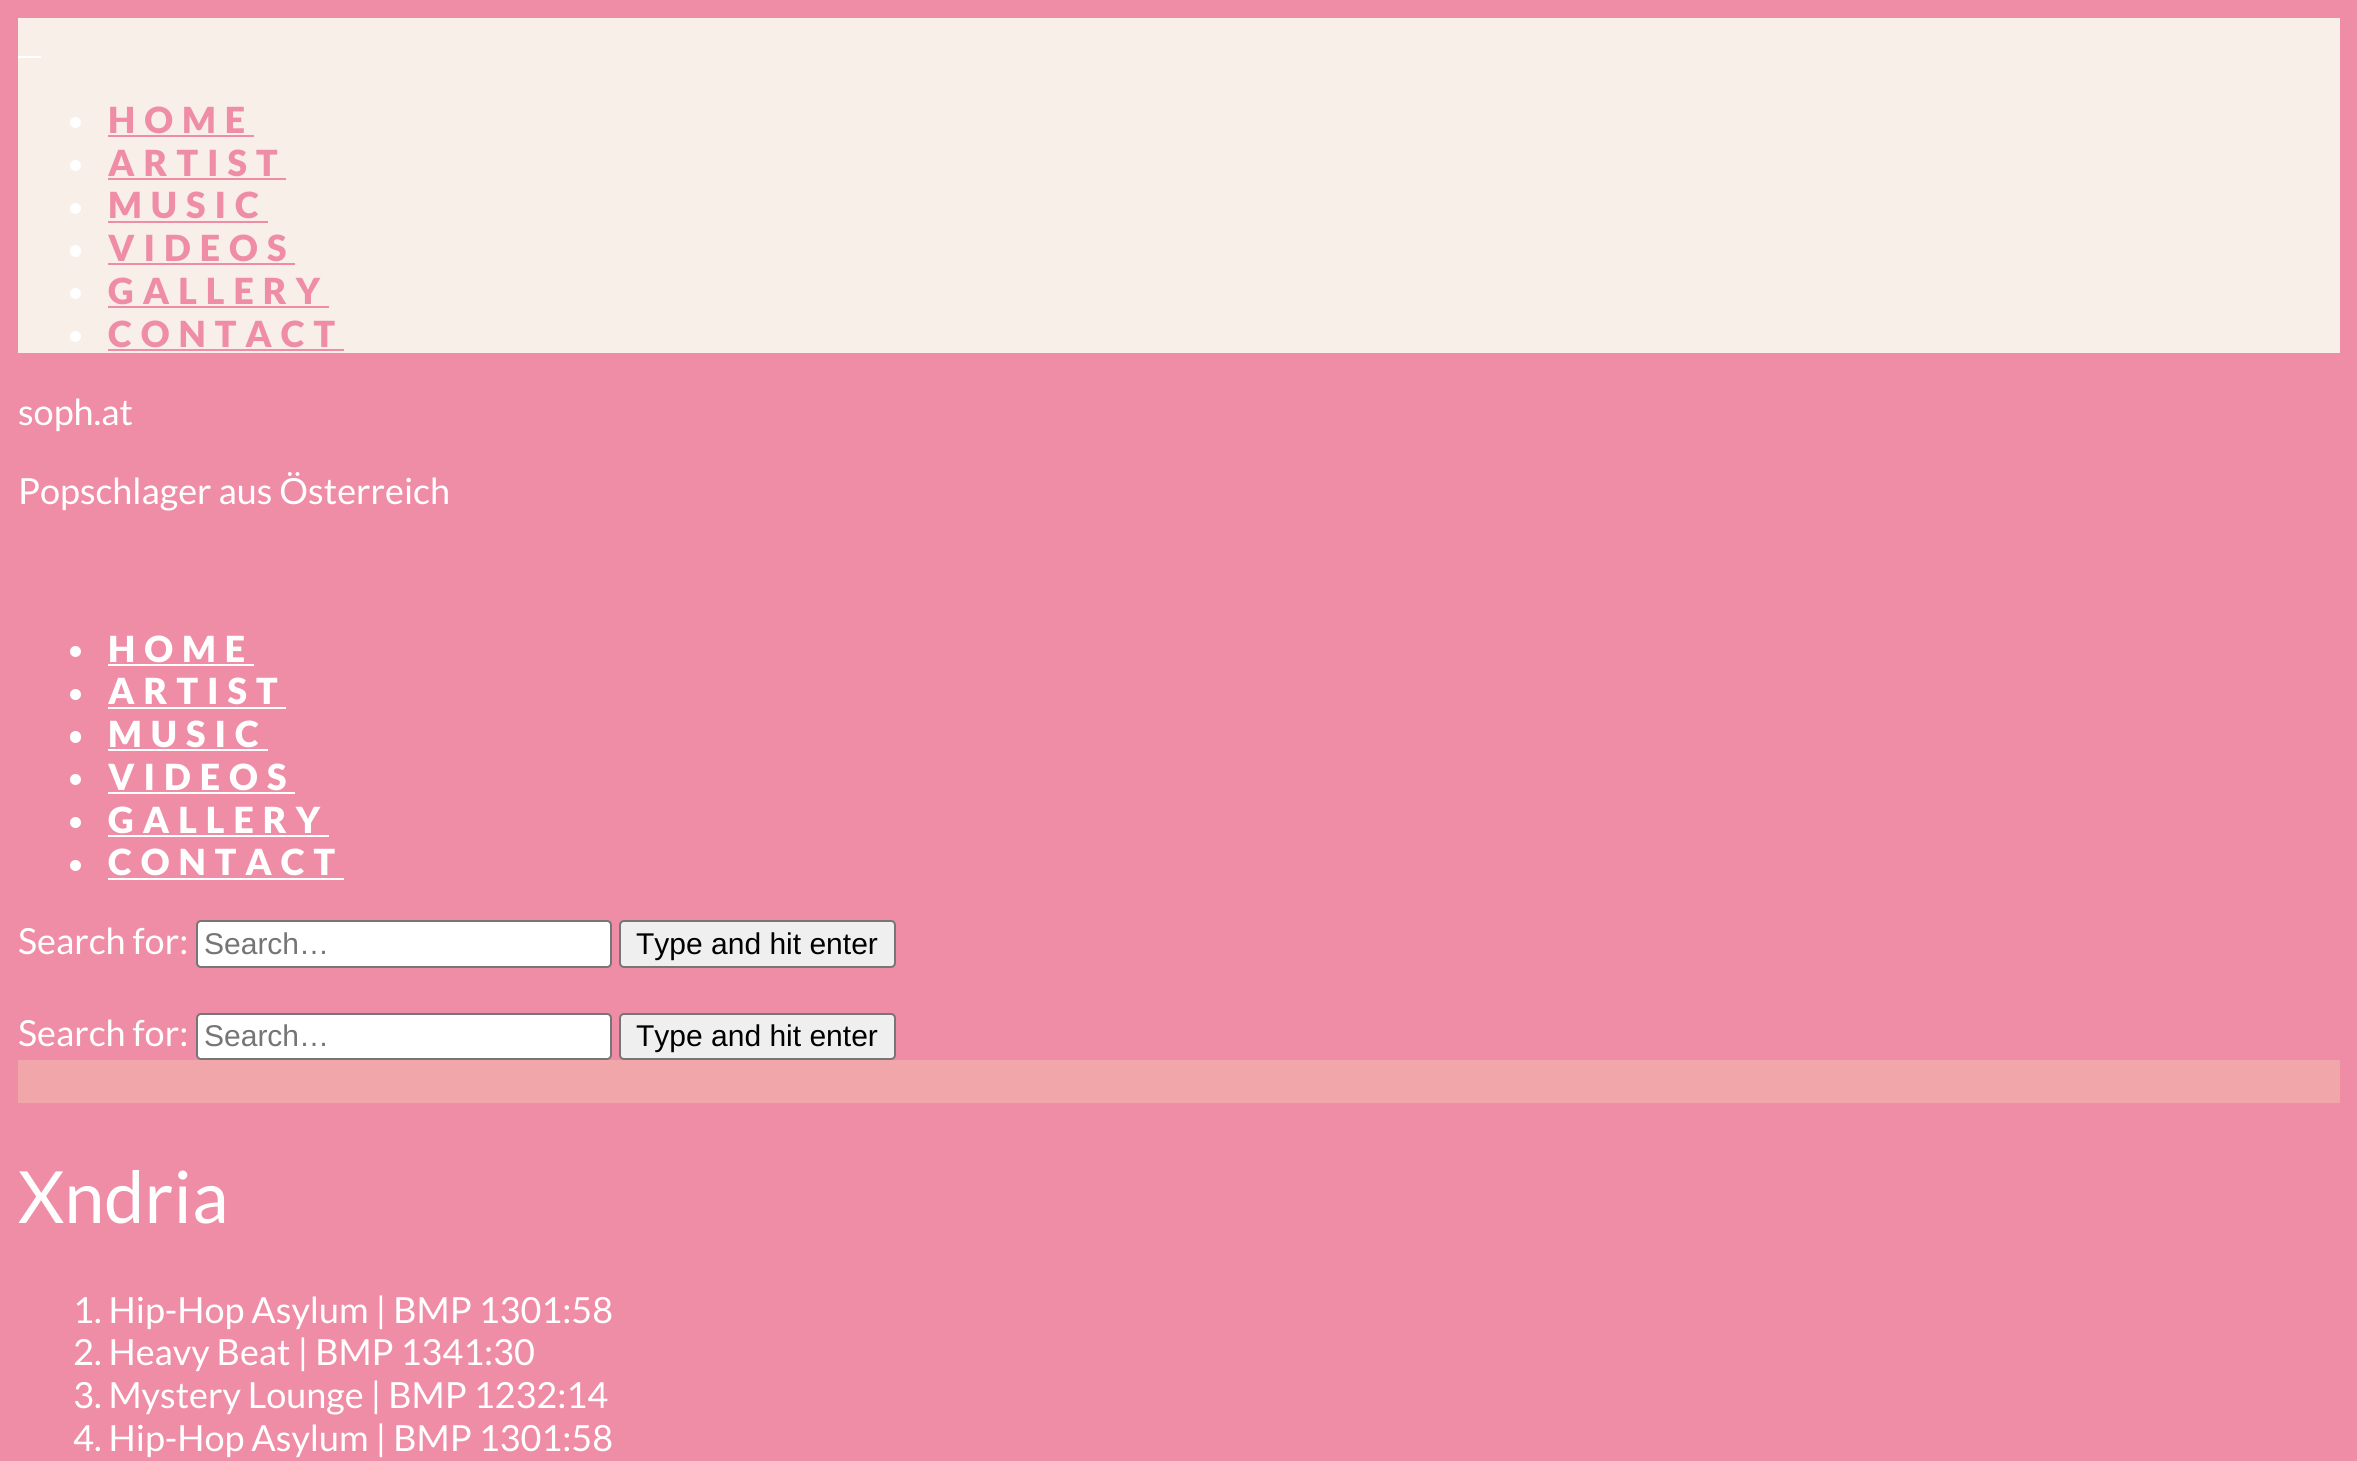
import math
import cairo


def use_color(cr, r, g, b):
  cr.set_source_rgb(r / 255, g / 255, b / 255)

def text(cr, x, y, s, family, size, color, bold=False, italic=False):
  cr.select_font_face(family, cairo.FONT_SLANT_ITALIC if italic else cairo.FONT_SLANT_NORMAL, cairo.FONT_WEIGHT_BOLD if bold else cairo.FONT_WEIGHT_NORMAL)
  cr.set_font_size(size)
  use_color(cr, *color)
  cr.move_to(x, y)
  cr.show_text(s)

def spaced_text(cr, x, y, s, letter, word):
  cr.move_to(x, y)
  for ch in s:
    cr.show_text(ch)
    cr.rel_move_to(letter + word * (ch == ' '), 0)

def box(cr, x, y, w, h, *color):
  use_color(cr, *color)
  cr.rectangle(x, y, w, h)
  cr.fill()

def round_rect(cr, x, y, w, h, r):
  cr.new_sub_path()
  for i, (u, v) in enumerate([(x + w - r, y + h - r), (x + r, y + h - r), (x + r, y + r), (x + w - r, y + r)]):
    cr.arc(u, v, r, i * math.pi / 2, (i + 1) * math.pi / 2)
  cr.close_path()

def draw(cr):
  use_color(cr, 239, 141, 167)
  cr.paint()
  box(cr, 18, 18, 2322, 335, 247, 239, 232)
  box(cr, 18, 56, 23, 2, 255, 255, 255)
  cr.arc(75.5, 122.5, 5.5, 0, 2 * math.pi)
  cr.fill()
  box(cr, 108, 135, 146, 2, 239, 141, 167)
  use_color(cr, 255, 255, 255)
  cr.arc(75.5, 165.5, 5.5, 0, 2 * math.pi)
  cr.fill()
  box(cr, 108, 178, 178, 2, 239, 141, 167)
  use_color(cr, 255, 255, 255)
  cr.arc(75.5, 208.5, 5.5, 0, 2 * math.pi)
  cr.fill()
  box(cr, 108, 221, 160, 2, 239, 141, 167)
  use_color(cr, 255, 255, 255)
  round_rect(cr, 70, 245, 11, 12, 5.5)
  cr.fill()
  box(cr, 108, 263, 187, 2, 239, 141, 167)
  use_color(cr, 255, 255, 255)
  cr.arc(75.5, 293.5, 5.5, 0, 2 * math.pi)
  cr.fill()
  box(cr, 108, 306, 221, 2, 239, 141, 167)
  use_color(cr, 255, 255, 255)
  cr.arc(75.5, 336.5, 5.5, 0, 2 * math.pi)
  cr.fill()
  box(cr, 108, 349, 236, 2, 239, 141, 167)
  use_color(cr, 255, 255, 255)
  cr.arc(75.5, 651.5, 5.5, 0, 2 * math.pi)
  cr.fill()
  box(cr, 108, 664, 146, 2, 255, 255, 255)
  cr.arc(75.5, 694.5, 5.5, 0, 2 * math.pi)
  cr.fill()
  box(cr, 108, 707, 178, 2, 255, 255, 255)
  round_rect(cr, 70, 731, 11, 12, 5.5)
  cr.fill()
  box(cr, 108, 749, 160, 2, 255, 255, 255)
  cr.arc(75.5, 779.5, 5.5, 0, 2 * math.pi)
  cr.fill()
  box(cr, 108, 792, 187, 2, 255, 255, 255)
  cr.arc(75.5, 822.5, 5.5, 0, 2 * math.pi)
  cr.fill()
  box(cr, 108, 835, 221, 2, 255, 255, 255)
  cr.arc(75.5, 865.5, 5.5, 0, 2 * math.pi)
  cr.fill()
  box(cr, 108, 878, 236, 2, 255, 255, 255)
  round_rect(cr, 197, 921, 414, 46, 4)
  cr.fill_preserve()
  use_color(cr, 118, 118, 118)
  cr.stroke()
  use_color(cr, 239, 239, 239)
  round_rect(cr, 620, 921, 275, 46, 4)
  cr.fill_preserve()
  use_color(cr, 118, 118, 118)
  cr.stroke()
  use_color(cr, 255, 255, 255)
  round_rect(cr, 197, 1014, 414, 45, 4)
  cr.fill_preserve()
  use_color(cr, 118, 118, 118)
  cr.stroke()
  use_color(cr, 239, 239, 239)
  round_rect(cr, 620, 1014, 275, 45, 4)
  cr.fill_preserve()
  use_color(cr, 118, 118, 118)
  cr.stroke()
  box(cr, 18, 1060, 2322, 43, 241, 167, 170)
  cr.select_font_face("Lato Black")
  cr.set_font_size(36)
  use_color(cr, 239, 141, 167)
  spaced_text(cr, 108, 133, "HOME", 9, 0)
  spaced_text(cr, 108, 176, "ARTIST", 9, 0)
  spaced_text(cr, 108, 218, "MUSIC", 9, 0)
  spaced_text(cr, 108, 261, "VIDEOS", 9, 0)
  spaced_text(cr, 108, 304, "GALLERY", 9, 0)
  spaced_text(cr, 108, 347, "CONTACT", 9, 0)
  text(cr, 18, 425, "soph.at", "Lato", 36, (255, 255, 255))
  text(cr, 18, 504, "Popschlager aus Österreich", "Lato", 36, (255, 255, 255))
  cr.select_font_face("Lato Black")
  spaced_text(cr, 108, 662, "HOME", 9, 0)
  spaced_text(cr, 108, 704, "ARTIST", 9, 0)
  spaced_text(cr, 108, 747, "MUSIC", 9, 0)
  spaced_text(cr, 108, 790, "VIDEOS", 9, 0)
  spaced_text(cr, 108, 833, "GALLERY", 9, 0)
  spaced_text(cr, 108, 875, "CONTACT", 9, 0)
  text(cr, 18, 954, "Search for:", "Lato", 36, (255, 255, 255))
  text(cr, 204, 954, "Search…", "Liberation Sans", 30, (117, 117, 117))
  text(cr, 636, 954, "Type and hit enter", "Liberation Sans", 30, (0, 0, 0))
  text(cr, 18, 1046, "Search for:", "Lato", 36, (255, 255, 255))
  text(cr, 204, 1046, "Search…", "Liberation Sans", 30, (117, 117, 117))
  text(cr, 636, 1046, "Type and hit enter", "Liberation Sans", 30, (0, 0, 0))
  text(cr, 18, 1223, "Xndria", "Lato", 72, (255, 255, 255))
  text(cr, 73, 1323, "1. Hip-Hop Asylum | BMP 1301:58", "Lato", 36, (255, 255, 255))
  text(cr, 73, 1365, "2. Heavy Beat | BMP 1341:30", "Lato", 36, (255, 255, 255))
  text(cr, 73, 1408, "3. Mystery Lounge | BMP 1232:14", "Lato", 36, (255, 255, 255))
  text(cr, 73, 1451, "4. Hip-Hop Asylum | BMP 1301:58", "Lato", 36, (255, 255, 255))


surface = cairo.ImageSurface(cairo.FORMAT_RGB24, 2357, 1461)
cr = cairo.Context(surface)
options = cairo.FontOptions()
options.set_hint_metrics(cairo.HINT_METRICS_OFF)
options.set_hint_style(cairo.HINT_STYLE_NONE)
cr.set_font_options(options)
cr.set_miter_limit(4)
draw(cr)
surface.write_to_png("out.png")
